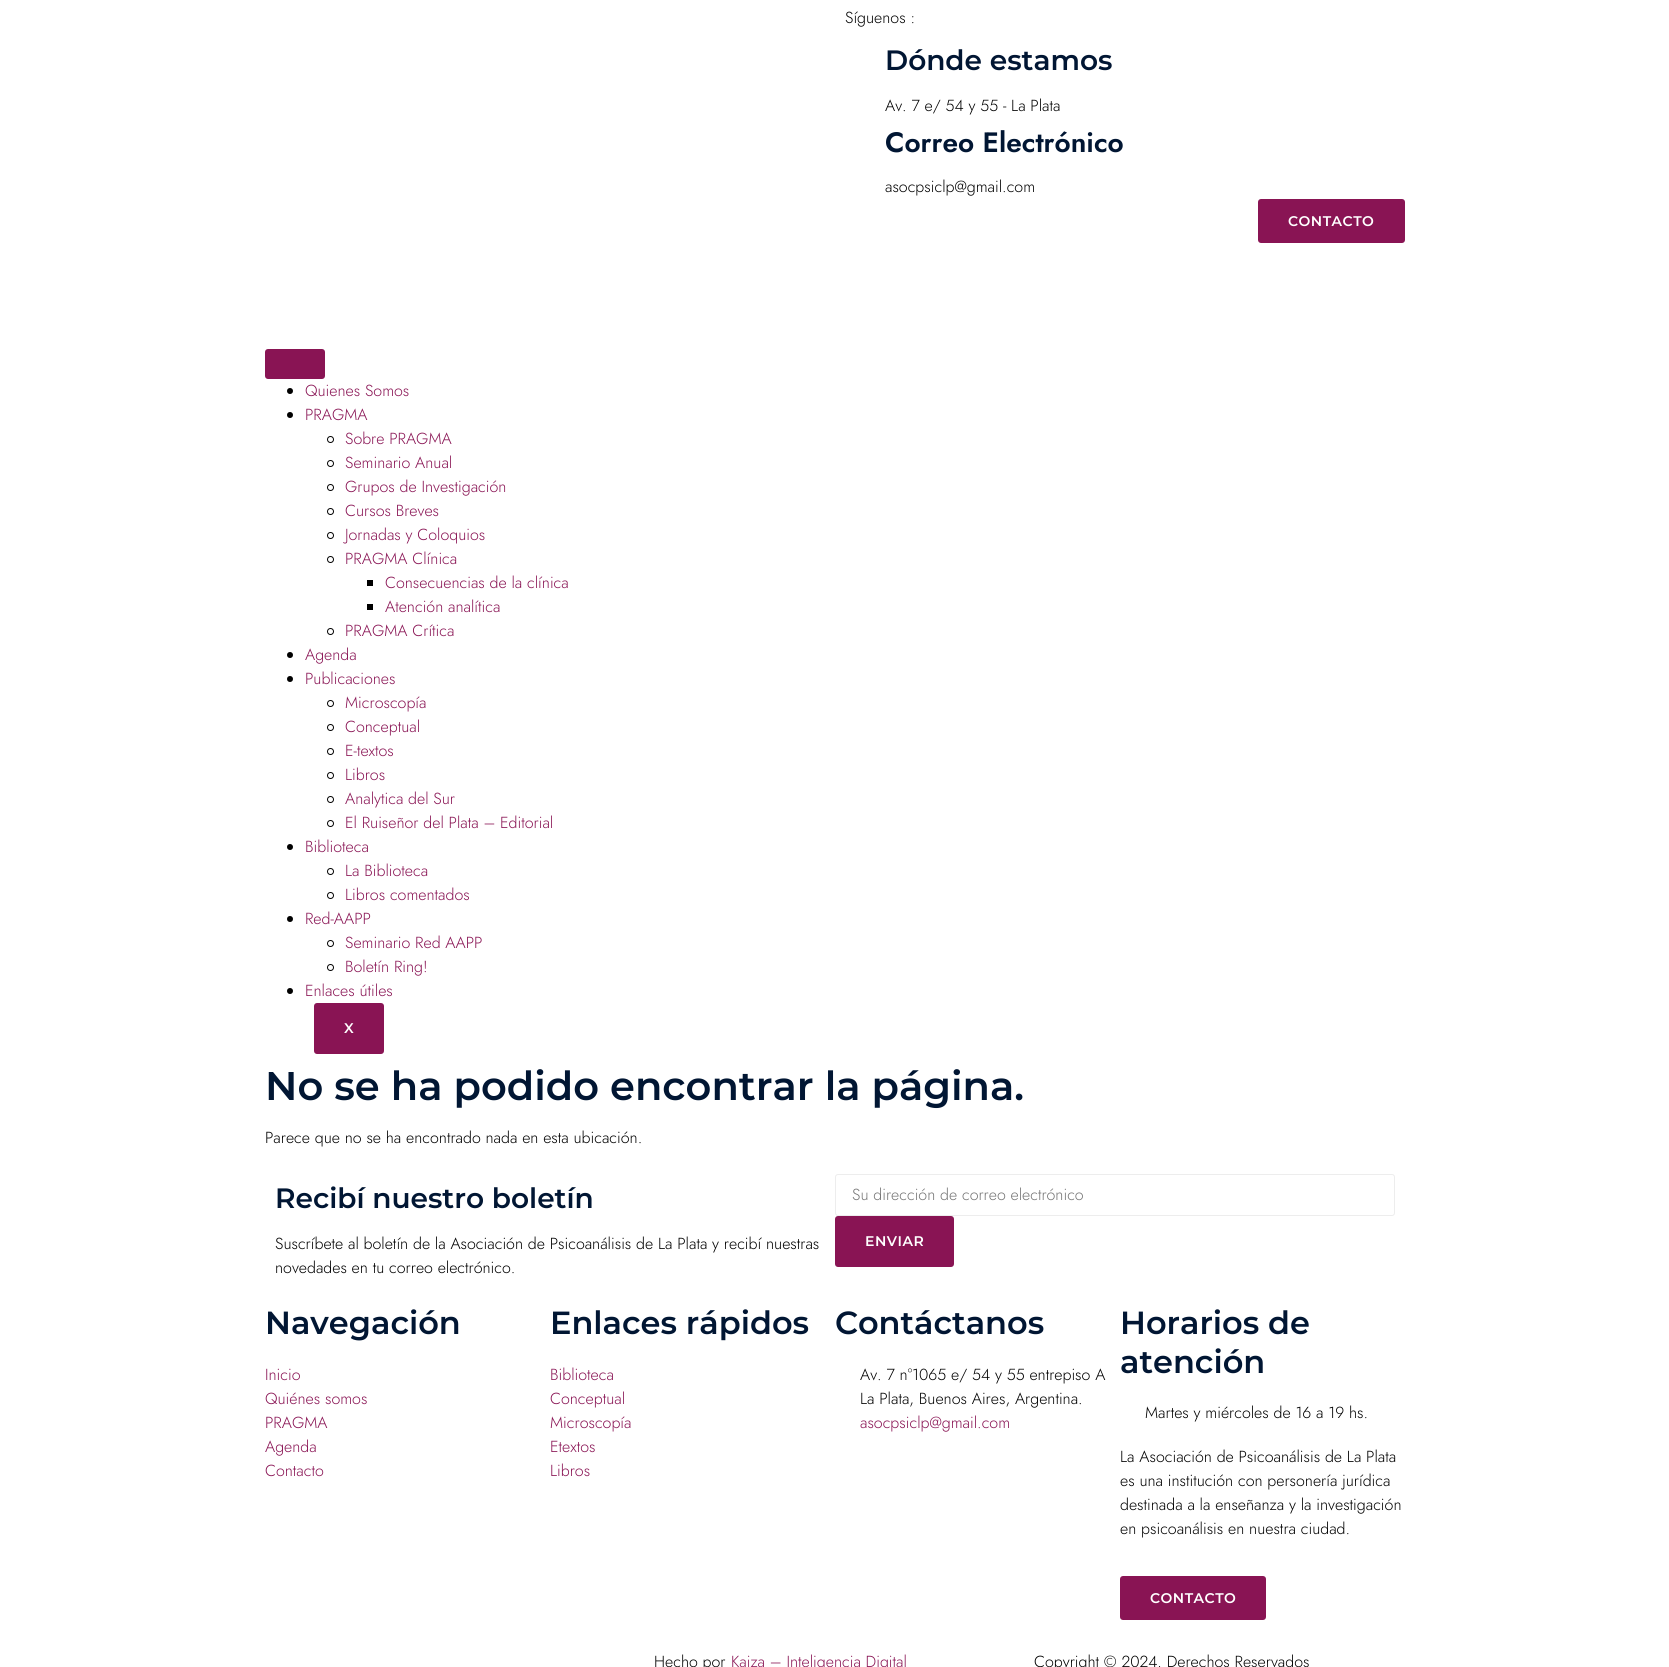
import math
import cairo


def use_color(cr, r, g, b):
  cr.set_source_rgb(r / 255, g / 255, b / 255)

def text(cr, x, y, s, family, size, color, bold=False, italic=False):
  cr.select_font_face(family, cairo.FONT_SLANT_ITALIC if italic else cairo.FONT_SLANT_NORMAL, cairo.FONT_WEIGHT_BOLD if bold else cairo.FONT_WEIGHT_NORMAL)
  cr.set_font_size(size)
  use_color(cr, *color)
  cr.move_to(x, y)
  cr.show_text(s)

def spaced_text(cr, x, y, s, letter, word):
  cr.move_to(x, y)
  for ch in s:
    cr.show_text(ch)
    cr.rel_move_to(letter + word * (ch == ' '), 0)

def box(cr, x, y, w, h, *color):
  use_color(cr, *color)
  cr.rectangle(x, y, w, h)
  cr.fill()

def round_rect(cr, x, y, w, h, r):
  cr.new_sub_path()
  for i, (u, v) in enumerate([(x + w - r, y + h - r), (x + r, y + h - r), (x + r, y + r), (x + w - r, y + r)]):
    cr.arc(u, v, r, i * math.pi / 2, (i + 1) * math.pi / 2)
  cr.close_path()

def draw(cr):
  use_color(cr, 255, 255, 255)
  cr.paint()
  use_color(cr, 137, 20, 84)
  round_rect(cr, 1258, 199, 147, 44, 3)
  cr.fill()
  round_rect(cr, 265, 349, 60, 30, 3)
  cr.fill()
  use_color(cr, 0, 0, 0)
  cr.arc(290, 391, 3, 0, 2 * math.pi)
  cr.fill()
  cr.arc(290, 415, 3, 0, 2 * math.pi)
  cr.fill()
  cr.arc(330.5, 439.5, 3, 0, 2 * math.pi)
  cr.set_line_width(1)
  cr.stroke()
  cr.arc(330.5, 463.5, 3, 0, 2 * math.pi)
  cr.stroke()
  cr.arc(330.5, 487.5, 3, 0, 2 * math.pi)
  cr.stroke()
  cr.arc(330.5, 511.5, 3, 0, 2 * math.pi)
  cr.stroke()
  cr.arc(330.5, 535.5, 3, 0, 2 * math.pi)
  cr.stroke()
  cr.arc(330.5, 559.5, 3, 0, 2 * math.pi)
  cr.stroke()
  box(cr, 367, 580, 6, 6, 0, 0, 0)
  box(cr, 367, 604, 6, 6, 0, 0, 0)
  cr.arc(330.5, 631.5, 3, 0, 2 * math.pi)
  cr.stroke()
  cr.arc(290, 655, 3, 0, 2 * math.pi)
  cr.fill()
  cr.arc(290, 679, 3, 0, 2 * math.pi)
  cr.fill()
  cr.arc(330.5, 703.5, 3, 0, 2 * math.pi)
  cr.stroke()
  cr.arc(330.5, 727.5, 3, 0, 2 * math.pi)
  cr.stroke()
  cr.arc(330.5, 751.5, 3, 0, 2 * math.pi)
  cr.stroke()
  cr.arc(330.5, 775.5, 3, 0, 2 * math.pi)
  cr.stroke()
  cr.arc(330.5, 799.5, 3, 0, 2 * math.pi)
  cr.stroke()
  cr.arc(330.5, 823.5, 3, 0, 2 * math.pi)
  cr.stroke()
  cr.arc(290, 847, 3, 0, 2 * math.pi)
  cr.fill()
  cr.arc(330.5, 871.5, 3, 0, 2 * math.pi)
  cr.stroke()
  cr.arc(330.5, 895.5, 3, 0, 2 * math.pi)
  cr.stroke()
  cr.arc(290, 919, 3, 0, 2 * math.pi)
  cr.fill()
  cr.arc(330.5, 943.5, 3, 0, 2 * math.pi)
  cr.stroke()
  cr.arc(330.5, 967.5, 3, 0, 2 * math.pi)
  cr.stroke()
  cr.arc(290, 991, 3, 0, 2 * math.pi)
  cr.fill()
  use_color(cr, 137, 20, 84)
  round_rect(cr, 314, 1003, 70, 51, 3)
  cr.fill()
  round_rect(cr, 835.5, 1174.5, 559, 41, 2.5)
  use_color(cr, 237, 237, 237)
  cr.stroke()
  use_color(cr, 137, 20, 84)
  round_rect(cr, 835, 1216, 119, 51, 3)
  cr.fill()
  round_rect(cr, 1120, 1576, 146, 44, 3)
  cr.fill()
  text(cr, 845, 23, "Síguenos :", "Jost Light", 16, (0, 0, 0))
  text(cr, 885, 70, "Dónde estamos", "Montserrat SemiBold", 28, (1, 22, 51))
  text(cr, 885, 111, "Av. 7 e/ 54 y 55 - La Plata", "Jost Light", 16, (0, 0, 0))
  text(cr, 885, 152, "Correo Electrónico", "Jost SemiBold", 28, (1, 22, 51))
  text(cr, 885, 192, "asocpsiclp@gmail.com", "Jost Light", 16, (0, 0, 0))
  cr.select_font_face("Montserrat SemiBold")
  cr.set_font_size(14)
  use_color(cr, 255, 255, 255)
  spaced_text(cr, 1288, 226, "CONTACTO", 0.5, 0)
  text(cr, 305, 396, "Quienes Somos", "Jost Light", 16, (137, 20, 84))
  text(cr, 305, 420, "PRAGMA", "Jost Light", 16, (137, 20, 84))
  text(cr, 345, 444, "Sobre PRAGMA", "Jost Light", 16, (137, 20, 84))
  text(cr, 345, 468, "Seminario Anual", "Jost Light", 16, (137, 20, 84))
  text(cr, 345, 492, "Grupos de Investigación", "Jost Light", 16, (137, 20, 84))
  text(cr, 345, 516, "Cursos Breves", "Jost Light", 16, (137, 20, 84))
  text(cr, 345, 540, "Jornadas y Coloquios", "Jost Light", 16, (137, 20, 84))
  text(cr, 345, 564, "PRAGMA Clínica", "Jost Light", 16, (137, 20, 84))
  text(cr, 385, 588, "Consecuencias de la clínica", "Jost Light", 16, (137, 20, 84))
  text(cr, 385, 612, "Atención analítica", "Jost Light", 16, (137, 20, 84))
  text(cr, 345, 636, "PRAGMA Crítica", "Jost Light", 16, (137, 20, 84))
  text(cr, 305, 660, "Agenda", "Jost Light", 16, (137, 20, 84))
  text(cr, 305, 684, "Publicaciones", "Jost Light", 16, (137, 20, 84))
  text(cr, 345, 708, "Microscopía", "Jost Light", 16, (137, 20, 84))
  text(cr, 345, 732, "Conceptual", "Jost Light", 16, (137, 20, 84))
  text(cr, 345, 756, "E-textos", "Jost Light", 16, (137, 20, 84))
  text(cr, 345, 780, "Libros", "Jost Light", 16, (137, 20, 84))
  text(cr, 345, 804, "Analytica del Sur", "Jost Light", 16, (137, 20, 84))
  text(cr, 345, 828, "El Ruiseñor del Plata – Editorial", "Jost Light", 16, (137, 20, 84))
  text(cr, 305, 852, "Biblioteca", "Jost Light", 16, (137, 20, 84))
  text(cr, 345, 876, "La Biblioteca", "Jost Light", 16, (137, 20, 84))
  text(cr, 345, 900, "Libros comentados", "Jost Light", 16, (137, 20, 84))
  text(cr, 305, 924, "Red-AAPP", "Jost Light", 16, (137, 20, 84))
  text(cr, 345, 948, "Seminario Red AAPP", "Jost Light", 16, (137, 20, 84))
  text(cr, 345, 972, "Boletín Ring!", "Jost Light", 16, (137, 20, 84))
  text(cr, 305, 996, "Enlaces útiles", "Jost Light", 16, (137, 20, 84))
  cr.select_font_face("Montserrat SemiBold")
  cr.set_font_size(14)
  use_color(cr, 255, 255, 255)
  spaced_text(cr, 344, 1033, "X", 0.5, 0)
  text(cr, 265, 1100, "No se ha podido encontrar la página.", "Montserrat SemiBold", 40, (1, 22, 51))
  text(cr, 265, 1143, "Parece que no se ha encontrado nada en esta ubicación.", "Jost Light", 16, (0, 0, 0))
  text(cr, 275, 1208, "Recibí nuestro boletín", "Montserrat SemiBold", 28, (1, 22, 51))
  text(cr, 275, 1249, "Suscríbete al boletín de la Asociación de Psicoanálisis de La Plata y recibí nuestras", "Jost Light", 16, (0, 0, 0))
  text(cr, 275, 1273, "novedades en tu correo electrónico.", "Jost Light", 16, (0, 0, 0))
  text(cr, 852, 1200, "Su dirección de correo electrónico", "Jost Light", 16, (117, 117, 117))
  cr.select_font_face("Montserrat SemiBold")
  cr.set_font_size(14)
  use_color(cr, 255, 255, 255)
  spaced_text(cr, 865, 1246, "ENVIAR", 0.5, 0)
  text(cr, 265, 1334, "Navegación", "Montserrat SemiBold", 32, (1, 22, 51))
  text(cr, 265, 1380, "Inicio", "Jost Light", 16, (137, 20, 84))
  text(cr, 265, 1404, "Quiénes somos", "Jost Light", 16, (137, 20, 84))
  text(cr, 265, 1428, "PRAGMA", "Jost Light", 16, (137, 20, 84))
  text(cr, 265, 1452, "Agenda", "Jost Light", 16, (137, 20, 84))
  text(cr, 265, 1476, "Contacto", "Jost Light", 16, (137, 20, 84))
  text(cr, 550, 1334, "Enlaces rápidos", "Montserrat SemiBold", 32, (1, 22, 51))
  text(cr, 550, 1380, "Biblioteca", "Jost Light", 16, (137, 20, 84))
  text(cr, 550, 1404, "Conceptual", "Jost Light", 16, (137, 20, 84))
  text(cr, 550, 1428, "Microscopía", "Jost Light", 16, (137, 20, 84))
  text(cr, 550, 1452, "Etextos", "Jost Light", 16, (137, 20, 84))
  text(cr, 550, 1476, "Libros", "Jost Light", 16, (137, 20, 84))
  text(cr, 835, 1334, "Contáctanos", "Montserrat SemiBold", 32, (1, 22, 51))
  text(cr, 860, 1380, "Av. 7 n°1065 e/ 54 y 55 entrepiso A", "Jost Light", 16, (0, 0, 0))
  text(cr, 860, 1404, "La Plata, Buenos Aires, Argentina.", "Jost Light", 16, (0, 0, 0))
  text(cr, 860, 1428, "asocpsiclp@gmail.com", "Jost Light", 16, (137, 20, 84))
  text(cr, 1120, 1334, "Horarios de", "Montserrat SemiBold", 32, (1, 22, 51))
  text(cr, 1120, 1373, "atención", "Montserrat SemiBold", 32, (1, 22, 51))
  text(cr, 1145, 1418, "Martes y miércoles de 16 a 19 hs.", "Jost Light", 16, (0, 0, 0))
  text(cr, 1120, 1462, "La Asociación de Psicoanálisis de La Plata", "Jost Light", 16, (0, 0, 0))
  text(cr, 1120, 1486, "es una institución con personería jurídica", "Jost Light", 16, (0, 0, 0))
  text(cr, 1120, 1510, "destinada a la enseñanza y la investigación", "Jost Light", 16, (0, 0, 0))
  text(cr, 1120, 1534, "en psicoanálisis en nuestra ciudad.", "Jost Light", 16, (0, 0, 0))
  cr.select_font_face("Montserrat SemiBold")
  cr.set_font_size(14)
  use_color(cr, 255, 255, 255)
  spaced_text(cr, 1150, 1603, "CONTACTO", 0.5, 0)
  text(cr, 654, 1667, "Hecho por", "Jost Light", 16, (0, 0, 0))
  text(cr, 731, 1667, "Kaiza – Inteligencia Digital", "Jost Light", 16, (137, 20, 84))
  text(cr, 1034, 1667, "Copyright © 2024. Derechos Reservados", "Jost Light", 16, (0, 0, 0))


surface = cairo.ImageSurface(cairo.FORMAT_RGB24, 1669, 1667)
cr = cairo.Context(surface)
options = cairo.FontOptions()
options.set_hint_metrics(cairo.HINT_METRICS_OFF)
options.set_hint_style(cairo.HINT_STYLE_NONE)
cr.set_font_options(options)
cr.set_miter_limit(4)
draw(cr)
surface.write_to_png("out.png")
